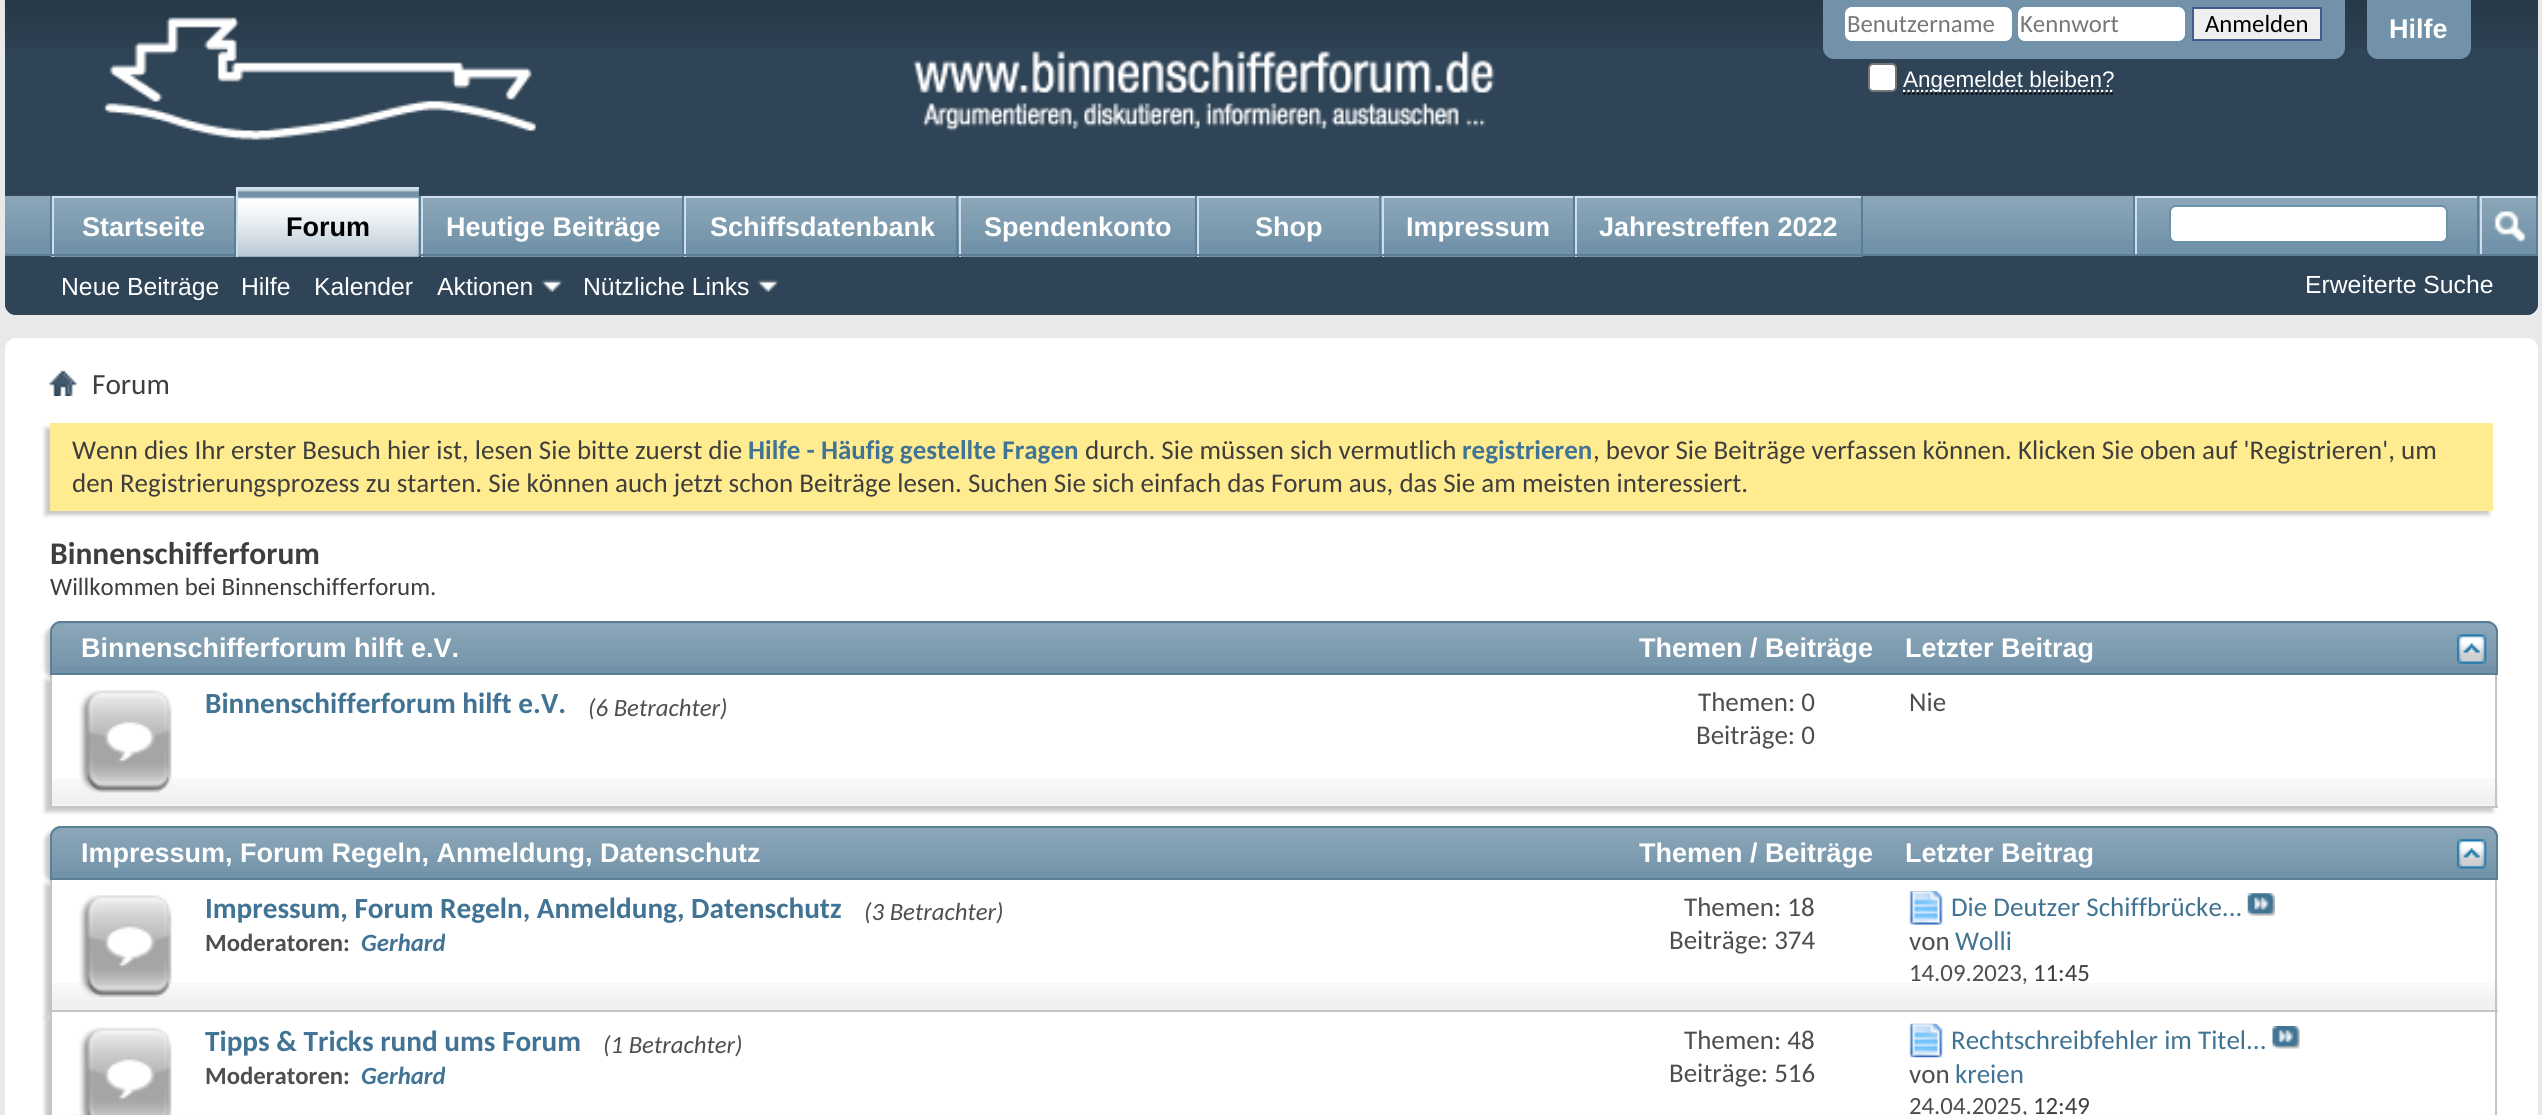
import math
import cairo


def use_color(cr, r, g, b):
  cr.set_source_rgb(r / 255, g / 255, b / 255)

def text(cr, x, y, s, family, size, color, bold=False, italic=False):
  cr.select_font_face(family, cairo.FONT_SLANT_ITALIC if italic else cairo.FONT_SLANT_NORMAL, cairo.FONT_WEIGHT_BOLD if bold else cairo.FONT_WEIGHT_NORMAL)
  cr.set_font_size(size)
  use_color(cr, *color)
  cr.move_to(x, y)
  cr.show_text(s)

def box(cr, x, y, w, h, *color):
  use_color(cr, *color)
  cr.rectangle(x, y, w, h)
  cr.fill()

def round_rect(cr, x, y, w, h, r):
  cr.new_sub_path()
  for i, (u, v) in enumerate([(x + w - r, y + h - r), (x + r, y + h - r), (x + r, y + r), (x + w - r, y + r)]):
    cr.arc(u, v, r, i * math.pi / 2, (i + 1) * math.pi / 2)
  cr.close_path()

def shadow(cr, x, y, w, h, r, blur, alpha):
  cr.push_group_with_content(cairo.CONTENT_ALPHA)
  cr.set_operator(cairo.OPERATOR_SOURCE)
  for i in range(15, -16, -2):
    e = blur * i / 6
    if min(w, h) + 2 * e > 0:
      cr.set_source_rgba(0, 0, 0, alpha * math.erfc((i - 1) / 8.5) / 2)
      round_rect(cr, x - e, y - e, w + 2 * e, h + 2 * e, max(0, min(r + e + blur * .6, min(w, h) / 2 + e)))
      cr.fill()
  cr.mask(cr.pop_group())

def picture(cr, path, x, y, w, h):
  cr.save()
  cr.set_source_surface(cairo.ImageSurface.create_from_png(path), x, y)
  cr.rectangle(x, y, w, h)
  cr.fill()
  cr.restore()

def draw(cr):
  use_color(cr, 233, 233, 233)
  cr.paint()
  use_color(cr, 47, 68, 86)
  cr.new_path()
  cr.move_to(5, 0)
  cr.line_to(2538, 0)
  cr.line_to(2538, 304)
  cr.curve_to(2538, 310, 2533, 315, 2527, 315)
  cr.line_to(16, 315)
  cr.curve_to(10, 315, 5, 310, 5, 304)
  cr.close_path()
  cr.fill()
  picture(cr, "img_01.png", 4, 0, 2534, 49)
  picture(cr, "img_02.png", 103, 17, 1392, 124)
  use_color(cr, 113, 146, 168)
  cr.new_path()
  cr.move_to(1823, 0)
  cr.line_to(2345, 0)
  cr.line_to(2345, 48)
  cr.curve_to(2345, 54, 2340, 59, 2334, 59)
  cr.line_to(1834, 59)
  cr.curve_to(1828, 59, 1823, 54, 1823, 48)
  cr.close_path()
  cr.fill()
  use_color(cr, 255, 255, 255)
  round_rect(cr, 1845, 7, 167, 34, 7)
  cr.fill()
  round_rect(cr, 2018, 7, 167, 34, 7)
  cr.fill()
  use_color(cr, 239, 239, 239)
  cr.rectangle(2193, 8, 128, 32)
  cr.fill_preserve()
  use_color(cr, 65, 93, 141)
  cr.stroke()
  use_color(cr, 255, 255, 255)
  round_rect(cr, 1869, 64, 27, 27, 4)
  cr.fill_preserve()
  use_color(cr, 118, 118, 118)
  cr.stroke()
  cr.new_path()
  cr.move_to(1903.5, 93.5)
  cr.line_to(2115, 93.5)
  use_color(cr, 0, 0, 0)
  cr.set_line_width(2.2)
  cr.set_dash([2.25, 2.25])
  cr.stroke()
  cr.new_path()
  cr.move_to(1903, 91)
  cr.line_to(2114, 91)
  use_color(cr, 255, 255, 255)
  cr.stroke()
  use_color(cr, 113, 146, 168)
  cr.new_path()
  cr.move_to(2367, 0)
  cr.line_to(2471, 0)
  cr.line_to(2471, 48)
  cr.curve_to(2471, 54, 2466, 59, 2460, 59)
  cr.line_to(2378, 59)
  cr.curve_to(2372, 59, 2367, 54, 2367, 48)
  cr.close_path()
  cr.fill()
  use_color(cr, 47, 68, 86)
  cr.new_path()
  cr.move_to(5, 196)
  cr.line_to(2538, 196)
  cr.line_to(2538, 304)
  cr.curve_to(2538, 310, 2533, 315, 2527, 315)
  cr.line_to(16, 315)
  cr.curve_to(10, 315, 5, 310, 5, 304)
  cr.close_path()
  cr.fill()
  box(cr, 5, 196, 2531, 58, 113, 146, 168)
  picture(cr, "img_03.png", 5, 195, 2533, 45)
  box(cr, 234, 196, 2, 61, 90, 127, 151)
  box(cr, 50, 196, 2, 61, 90, 127, 151)
  box(cr, 54, 198, 180, 59, 113, 146, 168)
  picture(cr, "img_04.png", 51, 198, 183, 44)
  box(cr, 52, 196, 182, 2, 206, 223, 235)
  box(cr, 52, 196, 2, 61, 206, 223, 235)
  box(cr, 419, 196, 2, 58, 90, 127, 151)
  box(cr, 682, 196, 2, 61, 90, 127, 151)
  box(cr, 423, 198, 259, 59, 113, 146, 168)
  picture(cr, "img_06.png", 420, 198, 262, 44)
  box(cr, 421, 196, 261, 2, 206, 223, 235)
  box(cr, 421, 196, 2, 61, 206, 223, 235)
  box(cr, 956, 196, 2, 61, 90, 127, 151)
  box(cr, 686, 198, 270, 59, 113, 146, 168)
  box(cr, 684, 196, 272, 2, 206, 223, 235)
  box(cr, 684, 196, 2, 61, 206, 223, 235)
  box(cr, 1195, 196, 2, 61, 90, 127, 151)
  box(cr, 961, 198, 234, 59, 113, 146, 168)
  picture(cr, "img_08.png", 958, 198, 237, 44)
  box(cr, 959, 196, 236, 2, 206, 223, 235)
  box(cr, 959, 196, 2, 61, 206, 223, 235)
  box(cr, 1379, 196, 2, 61, 90, 127, 151)
  box(cr, 1199, 198, 180, 59, 113, 146, 168)
  box(cr, 1197, 196, 182, 2, 206, 223, 235)
  box(cr, 1197, 196, 2, 61, 206, 223, 235)
  box(cr, 1573, 196, 2, 61, 90, 127, 151)
  box(cr, 1384, 198, 189, 59, 113, 146, 168)
  picture(cr, "img_10.png", 1381, 198, 192, 44)
  box(cr, 1382, 196, 191, 2, 206, 223, 235)
  box(cr, 1382, 196, 2, 61, 206, 223, 235)
  box(cr, 1861, 196, 2, 61, 90, 127, 151)
  box(cr, 1577, 198, 284, 59, 113, 146, 168)
  box(cr, 1575, 196, 286, 2, 206, 223, 235)
  box(cr, 1575, 196, 2, 61, 206, 223, 235)
  box(cr, 5, 254, 2533, 2, 90, 127, 151)
  box(cr, 238, 189, 181, 68, 113, 146, 168)
  picture(cr, "img_05.png", 238, 189, 181, 68)
  box(cr, 236, 187, 183, 2, 206, 223, 235)
  box(cr, 236, 187, 2, 70, 206, 223, 235)
  picture(cr, "img_07.png", 686, 198, 271, 44)
  picture(cr, "img_09.png", 1199, 198, 181, 44)
  picture(cr, "img_11.png", 1577, 198, 284, 44)
  picture(cr, "img_12.png", 541, 279, 22, 13)
  picture(cr, "img_13.png", 757, 279, 22, 13)
  box(cr, 2133, 196, 2, 58, 90, 127, 151)
  box(cr, 2135, 196, 342, 2, 206, 223, 235)
  box(cr, 2135, 196, 2, 58, 206, 223, 235)
  use_color(cr, 255, 255, 255)
  round_rect(cr, 2170, 206, 277, 36, 6)
  cr.fill_preserve()
  use_color(cr, 107, 145, 171)
  cr.set_line_width(2)
  cr.set_dash([])
  cr.stroke()
  box(cr, 2536, 196, 2, 58, 90, 127, 151)
  box(cr, 2477, 196, 2, 58, 90, 127, 151)
  box(cr, 2480, 196, 56, 2, 206, 223, 235)
  box(cr, 2480, 196, 2, 58, 206, 223, 235)
  picture(cr, "img_14.png", 2494, 211, 32, 32)
  use_color(cr, 255, 255, 255)
  round_rect(cr, 5, 338, 2533, 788, 11)
  cr.fill()
  picture(cr, "img_15.png", 49, 370, 28, 26)
  use_color(cr, 200, 200, 200)
  shadow(cr, 45, 428, 2444, 87, 0, 2, 1)
  box(cr, 50, 423, 2443, 88, 255, 235, 144)
  use_color(cr, 200, 200, 200)
  shadow(cr, 45, 626, 2448, 54, 11, 2, 1)
  use_color(cr, 113, 146, 168)
  cr.new_path()
  cr.move_to(61, 621)
  cr.line_to(2487, 621)
  cr.curve_to(2493, 621, 2498, 626, 2498, 632)
  cr.line_to(2498, 675)
  cr.line_to(50, 675)
  cr.line_to(50, 632)
  cr.curve_to(50, 626, 55, 621, 61, 621)
  cr.close_path()
  cr.fill()
  picture(cr, "img_16.png", 50, 623, 2448, 44)
  cr.new_path()
  cr.move_to(61, 622)
  cr.line_to(2487, 622)
  cr.curve_to(2492.5, 622, 2497, 626.5, 2497, 632)
  cr.line_to(2497, 674)
  cr.line_to(51, 674)
  cr.line_to(51, 632)
  cr.curve_to(51, 626.5, 55.5, 622, 61, 622)
  cr.close_path()
  use_color(cr, 90, 127, 151)
  cr.stroke()
  picture(cr, "img_17.png", 2457, 634, 30, 30)
  use_color(cr, 200, 200, 200)
  shadow(cr, 45, 680, 2448, 132, 0, 2, 1)
  box(cr, 52, 675, 2444, 131, 255, 255, 255)
  picture(cr, "img_18.png", 49, 778, 2449, 28)
  box(cr, 2495, 675, 2, 133, 196, 196, 196)
  box(cr, 50, 806, 2448, 2, 196, 196, 196)
  box(cr, 50, 675, 2, 133, 196, 196, 196)
  picture(cr, "img_19.png", 79, 690, 93, 103)
  use_color(cr, 200, 200, 200)
  shadow(cr, 45, 830, 2448, 54, 11, 2, 1)
  use_color(cr, 113, 146, 168)
  cr.new_path()
  cr.move_to(61, 826)
  cr.line_to(2487, 826)
  cr.curve_to(2493, 826, 2498, 831, 2498, 837)
  cr.line_to(2498, 880)
  cr.line_to(50, 880)
  cr.line_to(50, 837)
  cr.curve_to(50, 831, 55, 826, 61, 826)
  cr.close_path()
  cr.fill()
  picture(cr, "img_20.png", 50, 828, 2448, 44)
  cr.new_path()
  cr.move_to(61, 827)
  cr.line_to(2487, 827)
  cr.curve_to(2492.5, 827, 2497, 831.5, 2497, 837)
  cr.line_to(2497, 879)
  cr.line_to(51, 879)
  cr.line_to(51, 837)
  cr.curve_to(51, 831.5, 55.5, 827, 61, 827)
  cr.close_path()
  use_color(cr, 90, 127, 151)
  cr.stroke()
  picture(cr, "img_21.png", 2457, 839, 30, 30)
  use_color(cr, 200, 200, 200)
  shadow(cr, 45, 884, 2448, 133, 0, 2, 1)
  box(cr, 52, 880, 2444, 133, 255, 255, 255)
  picture(cr, "img_22.png", 49, 983, 2449, 27)
  box(cr, 2495, 880, 2, 133, 196, 196, 196)
  box(cr, 50, 1010, 2448, 2, 196, 196, 196)
  box(cr, 50, 880, 2, 133, 196, 196, 196)
  picture(cr, "img_23.png", 79, 895, 93, 103)
  picture(cr, "img_24.png", 1909, 891, 34, 34)
  picture(cr, "img_25.png", 2247, 893, 28, 23)
  use_color(cr, 200, 200, 200)
  shadow(cr, 45, 1017, 2448, 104, 0, 2, 1)
  box(cr, 52, 1013, 2444, 102, 255, 255, 255)
  box(cr, 50, 1114, 2447, 1, 250, 250, 250)
  box(cr, 2495, 1013, 2, 102, 196, 196, 196)
  box(cr, 50, 1013, 2, 102, 196, 196, 196)
  picture(cr, "img_26.png", 79, 1027, 93, 88)
  picture(cr, "img_27.png", 1909, 1023, 34, 35)
  picture(cr, "img_28.png", 2272, 1026, 28, 23)
  text(cr, 1847, 32, "Benutzername", "Carlito", 24.75, (119, 119, 119))
  text(cr, 2020, 32, "Kennwort", "Carlito", 24.75, (119, 119, 119))
  text(cr, 2205, 32, "Anmelden", "Carlito", 24.75, (0, 0, 0))
  text(cr, 1903, 87, "Angemeldet bleiben?", "Liberation Sans", 22.5, (255, 255, 255))
  text(cr, 2389, 38, "Hilfe", "Liberation Sans", 27, (255, 255, 255), bold=True)
  text(cr, 82, 236, "Startseite", "Liberation Sans", 27, (255, 255, 255), bold=True)
  text(cr, 286, 236, "Forum", "Liberation Sans", 27, (0, 0, 0), bold=True)
  text(cr, 446, 236, "Heutige Beiträge", "Liberation Sans", 27, (255, 255, 255), bold=True)
  text(cr, 710, 236, "Schiffsdatenbank", "Liberation Sans", 27, (255, 255, 255), bold=True)
  text(cr, 984, 236, "Spendenkonto", "Liberation Sans", 27, (255, 255, 255), bold=True)
  text(cr, 1255, 236, "Shop", "Liberation Sans", 27, (255, 255, 255), bold=True)
  text(cr, 1406, 236, "Impressum", "Liberation Sans", 27, (255, 255, 255), bold=True)
  text(cr, 1599, 236, "Jahrestreffen 2022", "Liberation Sans", 27, (255, 255, 255), bold=True)
  text(cr, 61, 295, "Neue Beiträge", "Liberation Sans", 24.75, (255, 255, 255))
  text(cr, 241, 295, "Hilfe", "Liberation Sans", 24.75, (255, 255, 255))
  text(cr, 314, 295, "Kalender", "Liberation Sans", 24.75, (255, 255, 255))
  text(cr, 437, 295, "Aktionen", "Liberation Sans", 24.75, (255, 255, 255))
  text(cr, 583, 295, "Nützliche Links", "Liberation Sans", 24.75, (255, 255, 255))
  text(cr, 2305, 293, "Erweiterte Suche", "Liberation Sans", 24.75, (255, 255, 255))
  text(cr, 92, 394, "Forum", "Carlito", 29.25, (62, 62, 62))
  text(cr, 72, 459, "Wenn dies Ihr erster Besuch hier ist, lesen Sie bitte zuerst die", "Carlito", 27, (62, 62, 62))
  text(cr, 748, 459, "Hilfe - Häufig gestellte Fragen", "Carlito", 27, (65, 115, 148), bold=True)
  text(cr, 1085, 459, "durch. Sie müssen sich vermutlich", "Carlito", 27, (62, 62, 62))
  text(cr, 1462, 459, "registrieren", "Carlito", 27, (65, 115, 148), bold=True)
  text(cr, 1593, 459, ", bevor Sie Beiträge verfassen können. Klicken Sie oben auf 'Registrieren', um", "Carlito", 27, (62, 62, 62))
  text(cr, 72, 492, "den Registrierungsprozess zu starten. Sie können auch jetzt schon Beiträge lesen. Suchen Sie sich einfach das Forum aus, das Sie am meisten interessiert.", "Carlito", 27, (62, 62, 62))
  text(cr, 50, 564, "Binnenschifferforum", "Carlito", 31.5, (62, 62, 62), bold=True)
  text(cr, 50, 595, "Willkommen bei Binnenschifferforum.", "Carlito", 24.9, (62, 62, 62))
  text(cr, 81, 657, "Binnenschifferforum hilft e.V.", "Liberation Sans", 27, (255, 255, 255), bold=True)
  text(cr, 1639, 657, "Themen / Beiträge", "Liberation Sans", 27, (255, 255, 255), bold=True)
  text(cr, 1905, 657, "Letzter Beitrag", "Liberation Sans", 27, (255, 255, 255), bold=True)
  text(cr, 205, 713, "Binnenschifferforum hilft e.V.", "Carlito", 29.25, (65, 115, 148), bold=True)
  text(cr, 588, 716, "(6 Betrachter)", "Carlito", 24.75, (78, 78, 78), italic=True)
  text(cr, 1698, 711, "Themen: 0", "Carlito", 27, (78, 78, 78))
  text(cr, 1696, 744, "Beiträge: 0", "Carlito", 27, (78, 78, 78))
  text(cr, 1909, 711, "Nie", "Carlito", 27, (78, 78, 78))
  text(cr, 81, 862, "Impressum, Forum Regeln, Anmeldung, Datenschutz", "Liberation Sans", 27, (255, 255, 255), bold=True)
  text(cr, 1639, 862, "Themen / Beiträge", "Liberation Sans", 27, (255, 255, 255), bold=True)
  text(cr, 1905, 862, "Letzter Beitrag", "Liberation Sans", 27, (255, 255, 255), bold=True)
  text(cr, 205, 918, "Impressum, Forum Regeln, Anmeldung, Datenschutz", "Carlito", 29.25, (65, 115, 148), bold=True)
  text(cr, 864, 920, "(3 Betrachter)", "Carlito", 24.75, (78, 78, 78), italic=True)
  text(cr, 205, 951, "Moderatoren:", "Carlito", 24.75, (78, 78, 78), bold=True)
  text(cr, 361, 951, "Gerhard", "Carlito", 24.75, (65, 115, 148), bold=True, italic=True)
  text(cr, 1684, 916, "Themen: 18", "Carlito", 27, (78, 78, 78))
  text(cr, 1669, 949, "Beiträge: 374", "Carlito", 27, (78, 78, 78))
  text(cr, 1951, 916, "Die Deutzer Schiffbrücke...", "Carlito", 27, (65, 115, 148))
  text(cr, 1909, 950, "von", "Carlito", 27, (78, 78, 78))
  text(cr, 1955, 950, "Wolli", "Carlito", 27, (65, 115, 148))
  text(cr, 1909, 981, "14.09.2023,", "Carlito", 24.75, (78, 78, 78))
  text(cr, 2033, 981, "11:45", "Carlito", 24.75, (62, 62, 62))
  text(cr, 205, 1051, "Tipps & Tricks rund ums Forum", "Carlito", 29.25, (65, 115, 148), bold=True)
  text(cr, 603, 1053, "(1 Betrachter)", "Carlito", 24.75, (78, 78, 78), italic=True)
  text(cr, 205, 1084, "Moderatoren:", "Carlito", 24.75, (78, 78, 78), bold=True)
  text(cr, 361, 1084, "Gerhard", "Carlito", 24.75, (65, 115, 148), bold=True, italic=True)
  text(cr, 1684, 1049, "Themen: 48", "Carlito", 27, (78, 78, 78))
  text(cr, 1669, 1082, "Beiträge: 516", "Carlito", 27, (78, 78, 78))
  text(cr, 1951, 1049, "Rechtschreibfehler im Titel...", "Carlito", 27, (65, 115, 148))
  text(cr, 1909, 1083, "von", "Carlito", 27, (78, 78, 78))
  text(cr, 1955, 1083, "kreien", "Carlito", 27, (65, 115, 148))
  text(cr, 1909, 1114, "24.04.2025,", "Carlito", 24.75, (78, 78, 78))
  text(cr, 2033, 1114, "12:49", "Carlito", 24.75, (62, 62, 62))


surface = cairo.ImageSurface(cairo.FORMAT_RGB24, 2542, 1115)
cr = cairo.Context(surface)
options = cairo.FontOptions()
options.set_hint_metrics(cairo.HINT_METRICS_OFF)
options.set_hint_style(cairo.HINT_STYLE_NONE)
cr.set_font_options(options)
cr.set_miter_limit(4)
draw(cr)
surface.write_to_png("out.png")
